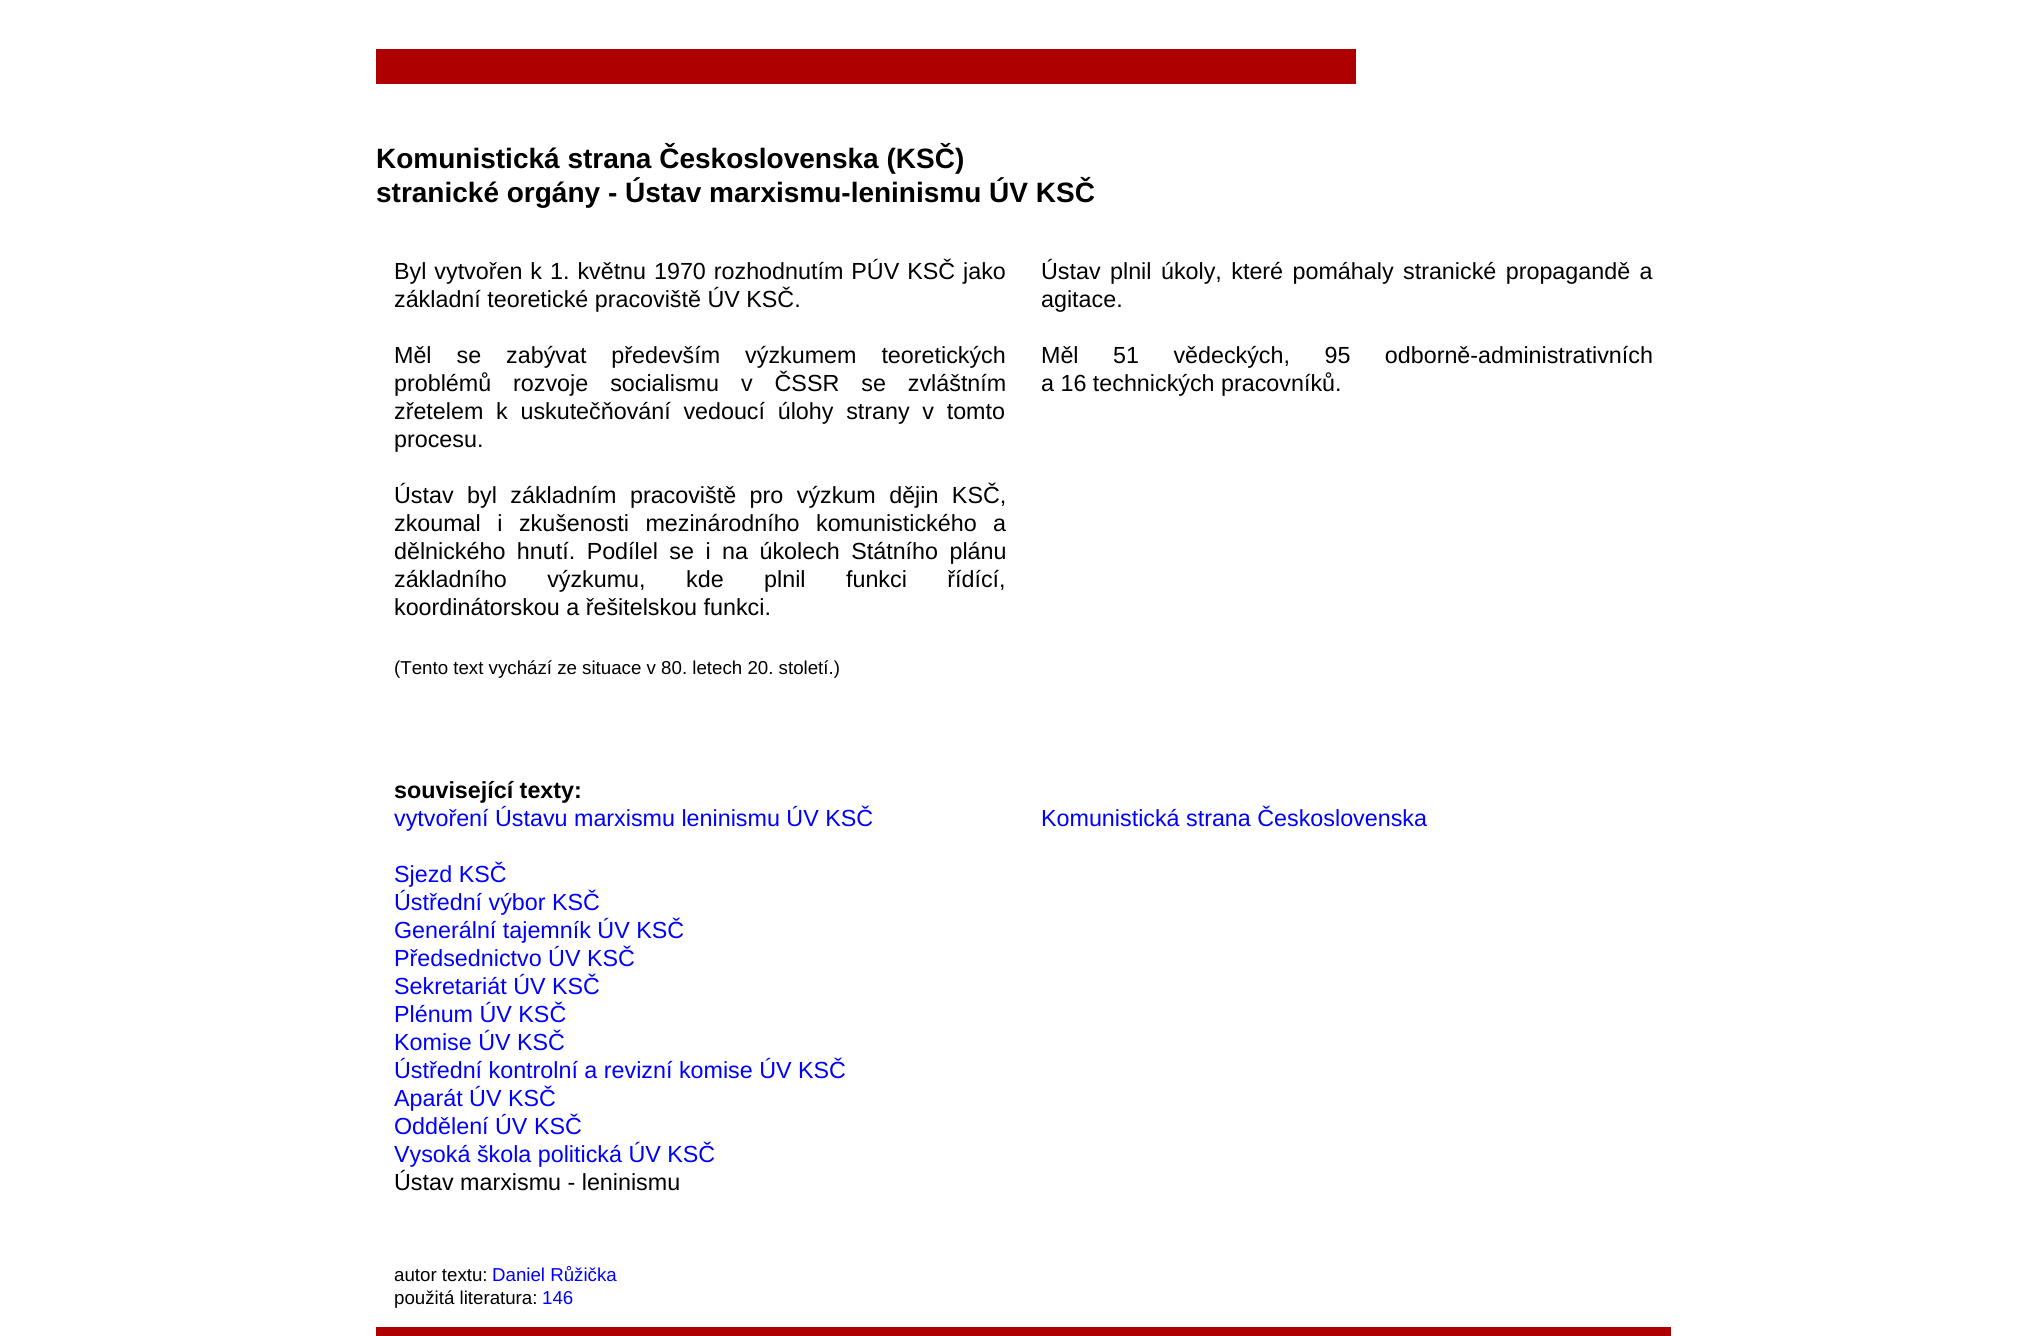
import math
import cairo


def use_color(cr, r, g, b):
  cr.set_source_rgb(r / 255, g / 255, b / 255)

def text(cr, x, y, s, family, size, color, bold=False, italic=False):
  cr.select_font_face(family, cairo.FONT_SLANT_ITALIC if italic else cairo.FONT_SLANT_NORMAL, cairo.FONT_WEIGHT_BOLD if bold else cairo.FONT_WEIGHT_NORMAL)
  cr.set_font_size(size)
  use_color(cr, *color)
  cr.move_to(x, y)
  cr.show_text(s)

def spaced_text(cr, x, y, s, letter, word):
  cr.move_to(x, y)
  for ch in s:
    cr.show_text(ch)
    cr.rel_move_to(letter + word * (ch == ' '), 0)

def box(cr, x, y, w, h, *color):
  use_color(cr, *color)
  cr.rectangle(x, y, w, h)
  cr.fill()

def draw(cr):
  use_color(cr, 255, 255, 255)
  cr.paint()
  box(cr, 376, 49, 980, 35, 174, 0, 0)
  box(cr, 376, 1327, 1295, 9, 174, 0, 0)
  text(cr, 376, 168, "Komunistická strana Československa (KSČ)", "Liberation Sans", 28, (0, 0, 0), bold=True)
  text(cr, 376, 202, "stranické orgány - Ústav marxismu-leninismu ÚV KSČ", "Liberation Sans", 28, (0, 0, 0), bold=True)
  cr.select_font_face("Liberation Sans")
  cr.set_font_size(23.3)
  spaced_text(cr, 394, 279, "Byl vytvořen k 1. květnu 1970 rozhodnutím PÚV KSČ jako", 0, 1.5)
  text(cr, 394, 307, "základní teoretické pracoviště ÚV KSČ.", "Liberation Sans", 23.3, (0, 0, 0))
  spaced_text(cr, 394, 363, "Měl se zabývat především výzkumem teoretických", 0, 18.5)
  spaced_text(cr, 394, 391, "problémů rozvoje socialismu v ČSSR se zvláštním", 0, 15.5)
  spaced_text(cr, 394, 419, "zřetelem k uskutečňování vedoucí úlohy strany v tomto", 0, 6.25)
  text(cr, 394, 447, "procesu.", "Liberation Sans", 23.3, (0, 0, 0))
  spaced_text(cr, 394, 503, "Ústav byl základním pracoviště pro výzkum dějin KSČ,", 0, 7)
  spaced_text(cr, 394, 531, "zkoumal i zkušenosti mezinárodního komunistického a", 0, 10)
  spaced_text(cr, 394, 559, "dělnického hnutí. Podílel se i na úkolech Státního plánu", 0, 5)
  spaced_text(cr, 394, 587, "základního výzkumu, kde plnil funkci řídící,", 0, 34)
  text(cr, 394, 615, "koordinátorskou a řešitelskou funkci.", "Liberation Sans", 23.3, (0, 0, 0))
  spaced_text(cr, 1041, 279, "Ústav plnil úkoly, které pomáhaly stranické propagandě a", 0, 3)
  text(cr, 1041, 307, "agitace.", "Liberation Sans", 23.3, (0, 0, 0))
  spaced_text(cr, 1041, 363, "Měl 51 vědeckých, 95 odborně-administrativních", 0, 28)
  text(cr, 1041, 391, "a 16 technických pracovníků.", "Liberation Sans", 23.3, (0, 0, 0))
  text(cr, 394, 674, "(Tento text vychází ze situace v 80. letech 20. století.)", "Liberation Sans", 18.7, (0, 0, 0))
  text(cr, 394, 798, "související texty:", "Liberation Sans", 23.3, (0, 0, 0), bold=True)
  text(cr, 394, 826, "vytvoření Ústavu marxismu leninismu ÚV KSČ", "Liberation Sans", 23.3, (0, 0, 255))
  text(cr, 394, 882, "Sjezd KSČ", "Liberation Sans", 23.3, (0, 0, 255))
  text(cr, 394, 910, "Ústřední výbor KSČ", "Liberation Sans", 23.3, (0, 0, 255))
  text(cr, 394, 938, "Generální tajemník ÚV KSČ", "Liberation Sans", 23.3, (0, 0, 255))
  text(cr, 394, 966, "Předsednictvo ÚV KSČ", "Liberation Sans", 23.3, (0, 0, 255))
  text(cr, 394, 994, "Sekretariát ÚV KSČ", "Liberation Sans", 23.3, (0, 0, 255))
  text(cr, 394, 1022, "Plénum ÚV KSČ", "Liberation Sans", 23.3, (0, 0, 255))
  text(cr, 394, 1050, "Komise ÚV KSČ", "Liberation Sans", 23.3, (0, 0, 255))
  text(cr, 394, 1078, "Ústřední kontrolní a revizní komise ÚV KSČ", "Liberation Sans", 23.3, (0, 0, 255))
  text(cr, 394, 1106, "Aparát ÚV KSČ", "Liberation Sans", 23.3, (0, 0, 255))
  text(cr, 394, 1134, "Oddělení ÚV KSČ", "Liberation Sans", 23.3, (0, 0, 255))
  text(cr, 394, 1162, "Vysoká škola politická ÚV KSČ", "Liberation Sans", 23.3, (0, 0, 255))
  text(cr, 394, 1190, "Ústav marxismu - leninismu", "Liberation Sans", 23.3, (0, 0, 0))
  text(cr, 1041, 826, "Komunistická strana Československa", "Liberation Sans", 23.3, (0, 0, 255))
  text(cr, 394, 1281, "autor textu:", "Liberation Sans", 18.7, (0, 0, 0))
  text(cr, 492, 1281, "Daniel Růžička", "Liberation Sans", 18.7, (0, 0, 255))
  text(cr, 394, 1304, "použitá literatura:", "Liberation Sans", 18.7, (0, 0, 0))
  text(cr, 542, 1304, "146", "Liberation Sans", 18.7, (0, 0, 255))


surface = cairo.ImageSurface(cairo.FORMAT_RGB24, 2038, 1336)
cr = cairo.Context(surface)
options = cairo.FontOptions()
options.set_hint_metrics(cairo.HINT_METRICS_OFF)
options.set_hint_style(cairo.HINT_STYLE_NONE)
cr.set_font_options(options)
cr.set_miter_limit(4)
draw(cr)
surface.write_to_png("out.png")
